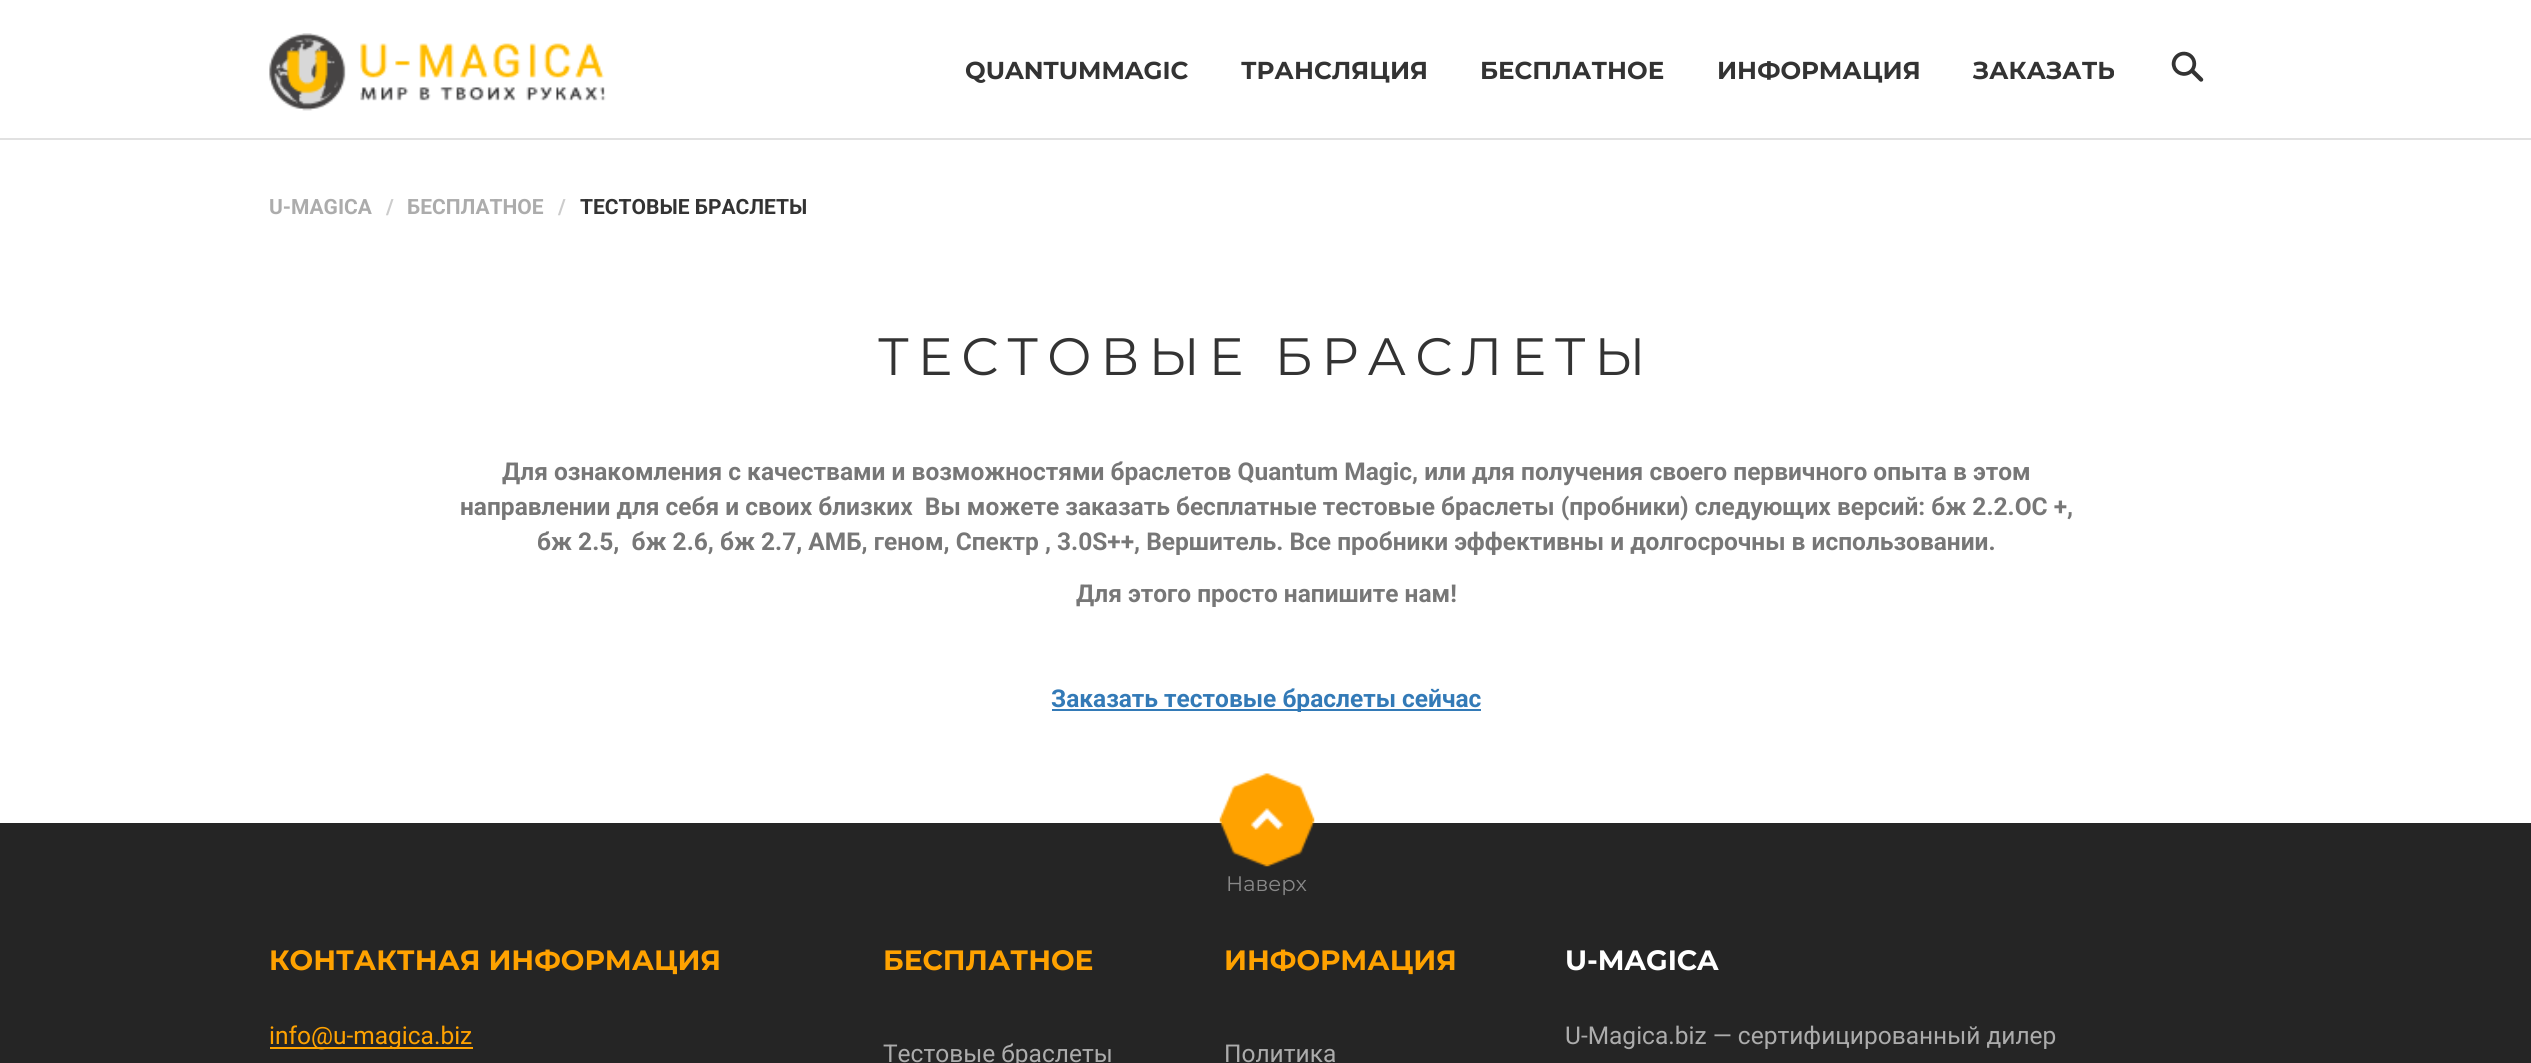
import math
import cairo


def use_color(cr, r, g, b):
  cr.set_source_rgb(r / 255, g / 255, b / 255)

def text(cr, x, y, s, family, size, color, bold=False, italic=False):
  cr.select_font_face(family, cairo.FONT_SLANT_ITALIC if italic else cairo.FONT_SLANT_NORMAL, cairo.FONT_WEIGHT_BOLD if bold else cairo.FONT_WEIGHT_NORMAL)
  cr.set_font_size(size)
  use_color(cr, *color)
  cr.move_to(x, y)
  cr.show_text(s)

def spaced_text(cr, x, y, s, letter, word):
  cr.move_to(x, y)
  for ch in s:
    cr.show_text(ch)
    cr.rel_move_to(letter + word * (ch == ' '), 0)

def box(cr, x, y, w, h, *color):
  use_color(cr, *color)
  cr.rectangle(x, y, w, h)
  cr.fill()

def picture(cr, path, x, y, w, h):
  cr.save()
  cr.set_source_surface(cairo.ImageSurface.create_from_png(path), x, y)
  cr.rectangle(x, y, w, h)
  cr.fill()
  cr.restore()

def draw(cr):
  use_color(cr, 255, 255, 255)
  cr.paint()
  box(cr, 0, 138, 2531, 2, 225, 225, 225)
  picture(cr, "img_01.png", 269, 33, 337, 78)
  picture(cr, "img_02.png", 2171, 51, 33, 31)
  box(cr, 1052, 709, 429, 2, 51, 122, 183)
  box(cr, 0, 823, 2531, 240, 37, 37, 37)
  picture(cr, "img_03.png", 1219, 773, 96, 94)
  box(cr, 270, 1047, 203, 2, 255, 162, 0)
  text(cr, 965, 79, "QUANTUMMAGIC", "Montserrat", 24.5, (51, 51, 51), bold=True)
  text(cr, 1241, 79, "ТРАНСЛЯЦИЯ", "Montserrat", 24.5, (51, 51, 51), bold=True)
  text(cr, 1480, 79, "БЕСПЛАТНОЕ", "Montserrat", 24.5, (51, 51, 51), bold=True)
  text(cr, 1717, 79, "ИНФОРМАЦИЯ", "Montserrat", 24.5, (51, 51, 51), bold=True)
  text(cr, 1973, 79, "ЗАКАЗАТЬ", "Montserrat", 24.5, (51, 51, 51), bold=True)
  text(cr, 269, 214, "U-MAGICA", "Roboto", 21, (172, 172, 172), bold=True)
  text(cr, 386, 214, "/", "Roboto", 21, (204, 204, 204), bold=True)
  text(cr, 407, 214, "БЕСПЛАТНОЕ", "Roboto", 21, (172, 172, 172), bold=True)
  text(cr, 558, 214, "/", "Roboto", 21, (204, 204, 204), bold=True)
  text(cr, 580, 214, "ТЕСТОВЫЕ БРАСЛЕТЫ", "Roboto", 21, (51, 51, 51), bold=True)
  cr.select_font_face("Montserrat")
  cr.set_font_size(52.5)
  spaced_text(cr, 878, 375, "ТЕСТОВЫЕ БРАСЛЕТЫ", 8.75, 0)
  text(cr, 502, 480, "Для ознакомления с качествами и возможностями браслетов Quantum Magic, или для получения своего первичного опыта в этом", "Roboto", 24.5, (119, 119, 119), bold=True)
  text(cr, 460, 515, "направлении для себя и своих близких  Вы можете заказать бесплатные тестовые браслеты (пробники) следующих версий: бж 2.2.ОС +,", "Roboto", 24.5, (119, 119, 119), bold=True)
  text(cr, 537, 550, "бж 2.5,  бж 2.6, бж 2.7, АМБ, геном, Спектр , 3.0S++, Вершитель. Все пробники эффективны и долгосрочны в использовании.", "Roboto", 24.5, (119, 119, 119), bold=True)
  text(cr, 1076, 602, "Для этого просто напишите нам!", "Roboto", 24.5, (119, 119, 119), bold=True)
  text(cr, 1051, 707, "Заказать тестовые браслеты сейчас", "Roboto", 24.5, (51, 122, 183), bold=True)
  text(cr, 1226, 891, "Наверх", "Montserrat", 21, (137, 137, 137))
  text(cr, 269, 970, "КОНТАКТНАЯ ИНФОРМАЦИЯ", "Montserrat", 28, (255, 162, 0), bold=True)
  text(cr, 269, 1044, "info@u-magica.biz", "Roboto", 24.5, (255, 162, 0))
  text(cr, 883, 970, "БЕСПЛАТНОЕ", "Montserrat", 28, (255, 162, 0), bold=True)
  text(cr, 883, 1062, "Тестовые браслеты", "Roboto", 24.5, (172, 172, 172))
  text(cr, 1224, 970, "ИНФОРМАЦИЯ", "Montserrat", 28, (255, 162, 0), bold=True)
  text(cr, 1224, 1062, "Политика", "Roboto", 24.5, (172, 172, 172))
  text(cr, 1565, 970, "U-MAGICA", "Montserrat", 28, (255, 255, 255), bold=True)
  text(cr, 1565, 1044, "U-Magica.biz — сертифицированный дилер", "Roboto", 24.5, (172, 172, 172))


surface = cairo.ImageSurface(cairo.FORMAT_RGB24, 2531, 1063)
cr = cairo.Context(surface)
options = cairo.FontOptions()
options.set_hint_metrics(cairo.HINT_METRICS_OFF)
options.set_hint_style(cairo.HINT_STYLE_NONE)
cr.set_font_options(options)
cr.set_miter_limit(4)
draw(cr)
surface.write_to_png("out.png")
